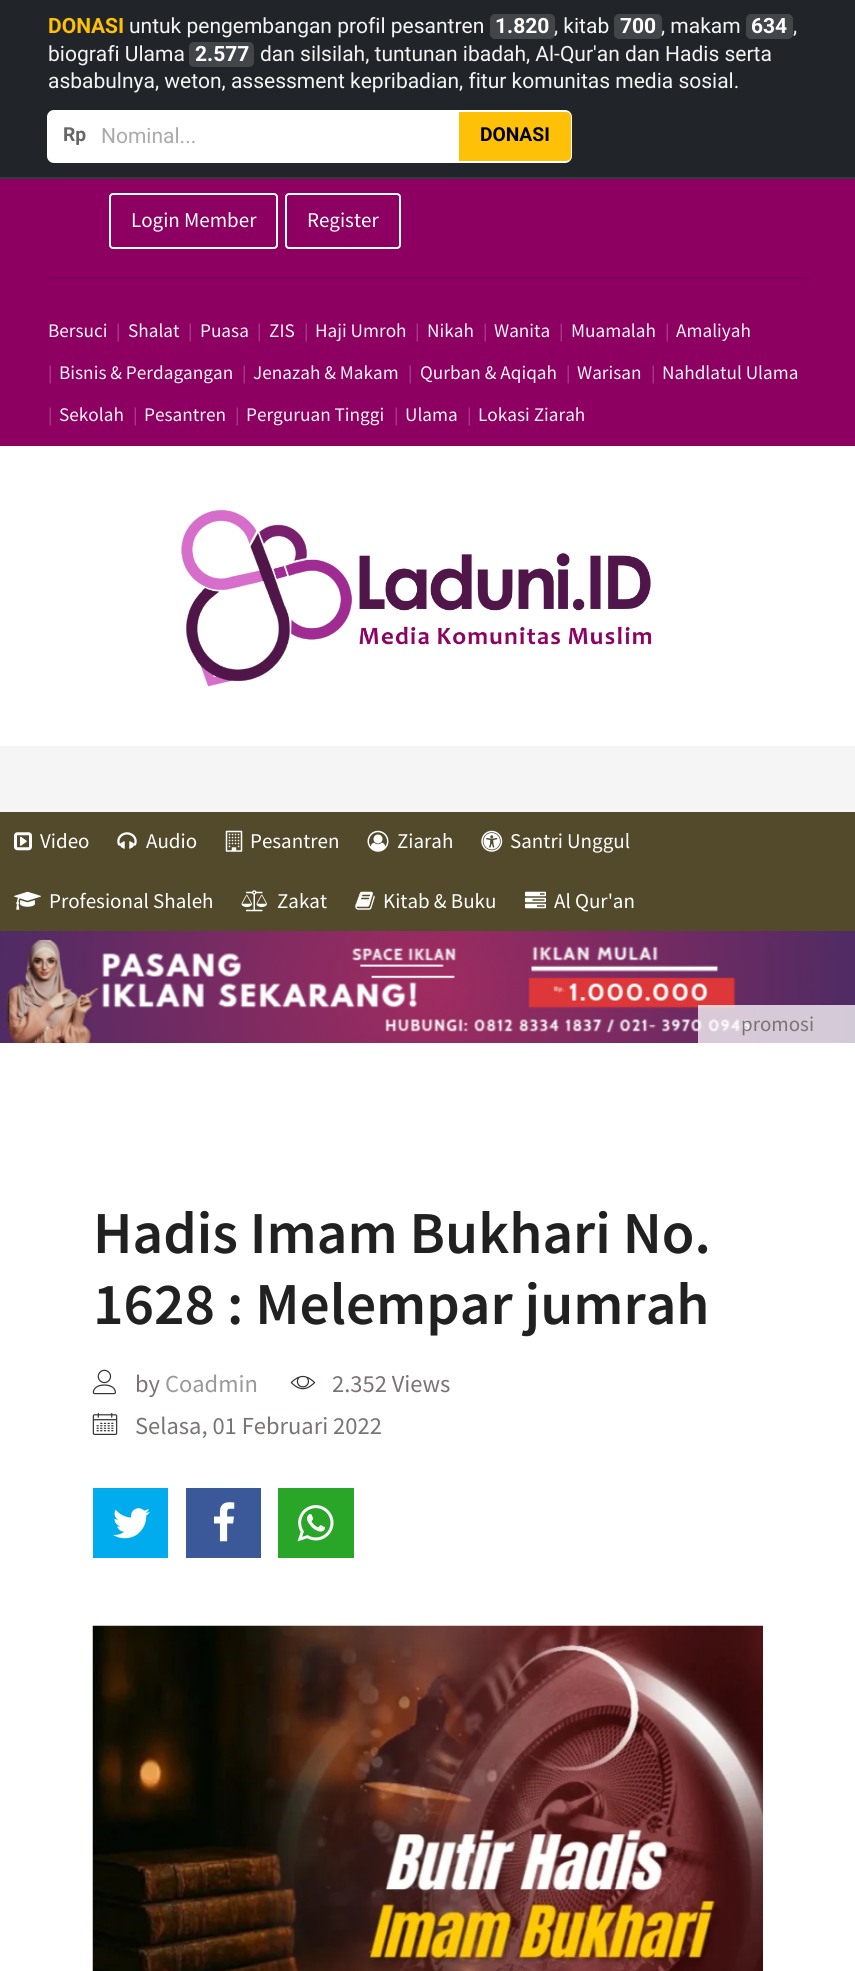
import math
import cairo


def use_color(cr, r, g, b):
  cr.set_source_rgb(r / 255, g / 255, b / 255)

def text(cr, x, y, s, family, size, color, bold=False, italic=False):
  cr.select_font_face(family, cairo.FONT_SLANT_ITALIC if italic else cairo.FONT_SLANT_NORMAL, cairo.FONT_WEIGHT_BOLD if bold else cairo.FONT_WEIGHT_NORMAL)
  cr.set_font_size(size)
  use_color(cr, *color)
  cr.move_to(x, y)
  cr.show_text(s)

def box(cr, x, y, w, h, *color):
  use_color(cr, *color)
  cr.rectangle(x, y, w, h)
  cr.fill()

def round_rect(cr, x, y, w, h, r):
  cr.new_sub_path()
  for i, (u, v) in enumerate([(x + w - r, y + h - r), (x + r, y + h - r), (x + r, y + r), (x + w - r, y + r)]):
    cr.arc(u, v, r, i * math.pi / 2, (i + 1) * math.pi / 2)
  cr.close_path()

def picture(cr, path, x, y, w, h):
  cr.save()
  cr.set_source_surface(cairo.ImageSurface.create_from_png(path), x, y)
  cr.rectangle(x, y, w, h)
  cr.fill()
  cr.restore()

def draw(cr):
  use_color(cr, 255, 255, 255)
  cr.paint()
  box(cr, 0, 0, 855, 177, 33, 37, 41)
  box(cr, 0, 177, 855, 2, 52, 58, 64)
  use_color(cr, 66, 70, 73)
  round_rect(cr, 490, 14, 65, 25, 5)
  cr.fill()
  round_rect(cr, 614, 14, 48, 25, 5)
  cr.fill()
  round_rect(cr, 746, 14, 47, 25, 5)
  cr.fill()
  round_rect(cr, 189, 42, 65, 25, 5)
  cr.fill()
  use_color(cr, 255, 255, 255)
  round_rect(cr, 47, 110, 525, 53, 7)
  cr.fill()
  use_color(cr, 255, 193, 7)
  cr.new_path()
  cr.move_to(459, 112)
  cr.line_to(566, 112)
  cr.curve_to(569, 112, 571, 114, 571, 117)
  cr.line_to(571, 156)
  cr.curve_to(571, 159, 569, 161, 566, 161)
  cr.line_to(459, 161)
  cr.close_path()
  cr.fill()
  box(cr, 0, 179, 855, 266, 141, 0, 97)
  box(cr, 0, 445, 855, 1, 137, 0, 94)
  round_rect(cr, 110, 194, 167, 54, 3)
  use_color(cr, 255, 255, 255)
  cr.stroke()
  round_rect(cr, 286, 194, 114, 54, 3)
  cr.stroke()
  box(cr, 47, 277, 762, 2, 127, 0, 87)
  picture(cr, "img_01.png", 181, 509, 471, 178)
  box(cr, 0, 746, 855, 66, 245, 245, 245)
  box(cr, 0, 812, 855, 119, 83, 73, 43)
  picture(cr, "img_02.png", 14, 832, 18, 19)
  picture(cr, "img_03.png", 117, 832, 20, 17)
  picture(cr, "img_04.png", 225, 830, 18, 22)
  picture(cr, "img_05.png", 367, 830, 22, 22)
  picture(cr, "img_06.png", 481, 830, 22, 22)
  picture(cr, "img_07.png", 14, 891, 27, 19)
  picture(cr, "img_08.png", 241, 890, 26, 22)
  picture(cr, "img_09.png", 355, 891, 20, 19)
  picture(cr, "img_10.png", 525, 891, 21, 18)
  picture(cr, "img_11.png", 0, 931, 855, 112)
  cr.set_source_rgba(1, 1, 1, 0.75)
  cr.rectangle(698, 1005, 157, 38)
  cr.fill()
  picture(cr, "img_12.png", 92, 1369, 24, 26)
  picture(cr, "img_13.png", 290, 1375, 26, 15)
  picture(cr, "img_14.png", 92, 1413, 26, 22)
  box(cr, 93, 1488, 75, 70, 0, 172, 237)
  picture(cr, "img_15.png", 113, 1508, 37, 31)
  box(cr, 186, 1488, 75, 70, 59, 89, 152)
  picture(cr, "img_16.png", 213, 1502, 22, 40)
  box(cr, 278, 1488, 76, 70, 41, 166, 40)
  picture(cr, "img_17.png", 297, 1505, 37, 37)
  picture(cr, "img_18.png", 92, 1625, 671, 346)
  text(cr, 48, 33, "DONASI", "Roboto", 21, (255, 193, 7), bold=True)
  text(cr, 129, 33, "untuk pengembangan profil pesantren", "Roboto", 21, (244, 244, 244))
  text(cr, 495, 33, "1.820", "Roboto", 21, (255, 255, 255), bold=True)
  text(cr, 554, 33, ", kitab", "Roboto", 21, (244, 244, 244))
  text(cr, 620, 33, "700", "Roboto", 21, (255, 255, 255), bold=True)
  text(cr, 661, 33, ", makam", "Roboto", 21, (244, 244, 244))
  text(cr, 751, 33, "634", "Roboto", 21, (255, 255, 255), bold=True)
  text(cr, 793, 33, ",", "Roboto", 21, (244, 244, 244))
  text(cr, 48, 61, "biografi Ulama", "Roboto", 21, (244, 244, 244))
  text(cr, 195, 61, "2.577", "Roboto", 21, (255, 255, 255), bold=True)
  text(cr, 260, 61, "dan silsilah, tuntunan ibadah, Al-Qur'an dan Hadis serta", "Roboto", 21, (244, 244, 244))
  text(cr, 48, 88, "asbabulnya, weton, assessment kepribadian, fitur komunitas media sosial.", "Roboto", 21, (244, 244, 244))
  text(cr, 63, 141, "Rp", "Roboto", 19.25, (102, 102, 102), bold=True)
  text(cr, 101, 143, "Nominal...", "Roboto", 21, (170, 170, 170))
  text(cr, 480, 141, "DONASI", "Roboto", 19.25, (0, 0, 0), bold=True)
  text(cr, 131, 227, "Login Member", "Source Sans Pro", 21, (255, 255, 255))
  text(cr, 307, 227, "Register", "Source Sans Pro", 21, (255, 255, 255))
  text(cr, 48, 337, "Bersuci", "Source Sans Pro", 19.25, (244, 244, 244))
  text(cr, 116, 337, "|", "Source Sans Pro", 18, (175, 77, 144))
  text(cr, 128, 337, "Shalat", "Source Sans Pro", 19.25, (244, 244, 244))
  text(cr, 188, 337, "|", "Source Sans Pro", 18, (175, 77, 144))
  text(cr, 200, 337, "Puasa", "Source Sans Pro", 19.25, (244, 244, 244))
  text(cr, 257, 337, "|", "Source Sans Pro", 18, (175, 77, 144))
  text(cr, 269, 337, "ZIS", "Source Sans Pro", 19.25, (244, 244, 244))
  text(cr, 304, 337, "|", "Source Sans Pro", 18, (175, 77, 144))
  text(cr, 315, 337, "Haji Umroh", "Source Sans Pro", 19.25, (244, 244, 244))
  text(cr, 415, 337, "|", "Source Sans Pro", 18, (175, 77, 144))
  text(cr, 427, 337, "Nikah", "Source Sans Pro", 19.25, (244, 244, 244))
  text(cr, 483, 337, "|", "Source Sans Pro", 18, (175, 77, 144))
  text(cr, 494, 337, "Wanita", "Source Sans Pro", 19.25, (244, 244, 244))
  text(cr, 559, 337, "|", "Source Sans Pro", 18, (175, 77, 144))
  text(cr, 571, 337, "Muamalah", "Source Sans Pro", 19.25, (244, 244, 244))
  text(cr, 665, 337, "|", "Source Sans Pro", 18, (175, 77, 144))
  text(cr, 676, 337, "Amaliyah", "Source Sans Pro", 19.25, (244, 244, 244))
  text(cr, 48, 379, "|", "Source Sans Pro", 18, (175, 77, 144))
  text(cr, 59, 379, "Bisnis & Perdagangan", "Source Sans Pro", 19.25, (244, 244, 244))
  text(cr, 242, 379, "|", "Source Sans Pro", 18, (175, 77, 144))
  text(cr, 253, 379, "Jenazah & Makam", "Source Sans Pro", 19.25, (244, 244, 244))
  text(cr, 408, 379, "|", "Source Sans Pro", 18, (175, 77, 144))
  text(cr, 420, 379, "Qurban & Aqiqah", "Source Sans Pro", 19.25, (244, 244, 244))
  text(cr, 566, 379, "|", "Source Sans Pro", 18, (175, 77, 144))
  text(cr, 577, 379, "Warisan", "Source Sans Pro", 19.25, (244, 244, 244))
  text(cr, 651, 379, "|", "Source Sans Pro", 18, (175, 77, 144))
  text(cr, 662, 379, "Nahdlatul Ulama", "Source Sans Pro", 19.25, (244, 244, 244))
  text(cr, 48, 421, "|", "Source Sans Pro", 18, (175, 77, 144))
  text(cr, 59, 421, "Sekolah", "Source Sans Pro", 19.25, (244, 244, 244))
  text(cr, 133, 421, "|", "Source Sans Pro", 18, (175, 77, 144))
  text(cr, 144, 421, "Pesantren", "Source Sans Pro", 19.25, (244, 244, 244))
  text(cr, 235, 421, "|", "Source Sans Pro", 18, (175, 77, 144))
  text(cr, 246, 421, "Perguruan Tinggi", "Source Sans Pro", 19.25, (244, 244, 244))
  text(cr, 394, 421, "|", "Source Sans Pro", 18, (175, 77, 144))
  text(cr, 405, 421, "Ulama", "Source Sans Pro", 19.25, (244, 244, 244))
  text(cr, 467, 421, "|", "Source Sans Pro", 18, (175, 77, 144))
  text(cr, 478, 421, "Lokasi Ziarah", "Source Sans Pro", 19.25, (244, 244, 244))
  text(cr, 40, 848, "Video", "Source Sans Pro", 21, (255, 255, 255))
  text(cr, 146, 848, "Audio", "Source Sans Pro", 21, (255, 255, 255))
  text(cr, 250, 848, "Pesantren", "Source Sans Pro", 21, (255, 255, 255))
  text(cr, 397, 848, "Ziarah", "Source Sans Pro", 21, (255, 255, 255))
  text(cr, 510, 848, "Santri Unggul", "Source Sans Pro", 21, (255, 255, 255))
  text(cr, 49, 908, "Profesional Shaleh", "Source Sans Pro", 21, (255, 255, 255))
  text(cr, 277, 908, "Zakat", "Source Sans Pro", 21, (255, 255, 255))
  text(cr, 383, 908, "Kitab & Buku", "Source Sans Pro", 21, (255, 255, 255))
  text(cr, 554, 908, "Al Qur'an", "Source Sans Pro", 21, (255, 255, 255))
  text(cr, 741, 1031, "promosi", "Source Sans Pro", 21, (123, 115, 115))
  text(cr, 93, 1253, "Hadis Imam Bukhari No.", "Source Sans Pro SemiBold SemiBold", 59.5, (33, 33, 33))
  text(cr, 93, 1324, "1628 : Melempar jumrah", "Source Sans Pro SemiBold SemiBold", 59.5, (33, 33, 33))
  text(cr, 135, 1392, "by", "Source Sans Pro", 24.5, (123, 115, 115))
  text(cr, 165, 1392, "Coadmin", "Source Sans Pro", 24.5, (153, 153, 153))
  text(cr, 332, 1392, "2.352 Views", "Source Sans Pro", 24.5, (123, 115, 115))
  text(cr, 135, 1434, "Selasa, 01 Februari 2022", "Source Sans Pro", 24.5, (123, 115, 115))


surface = cairo.ImageSurface(cairo.FORMAT_RGB24, 855, 1971)
cr = cairo.Context(surface)
options = cairo.FontOptions()
options.set_hint_metrics(cairo.HINT_METRICS_OFF)
options.set_hint_style(cairo.HINT_STYLE_NONE)
cr.set_font_options(options)
cr.set_miter_limit(4)
draw(cr)
surface.write_to_png("out.png")
